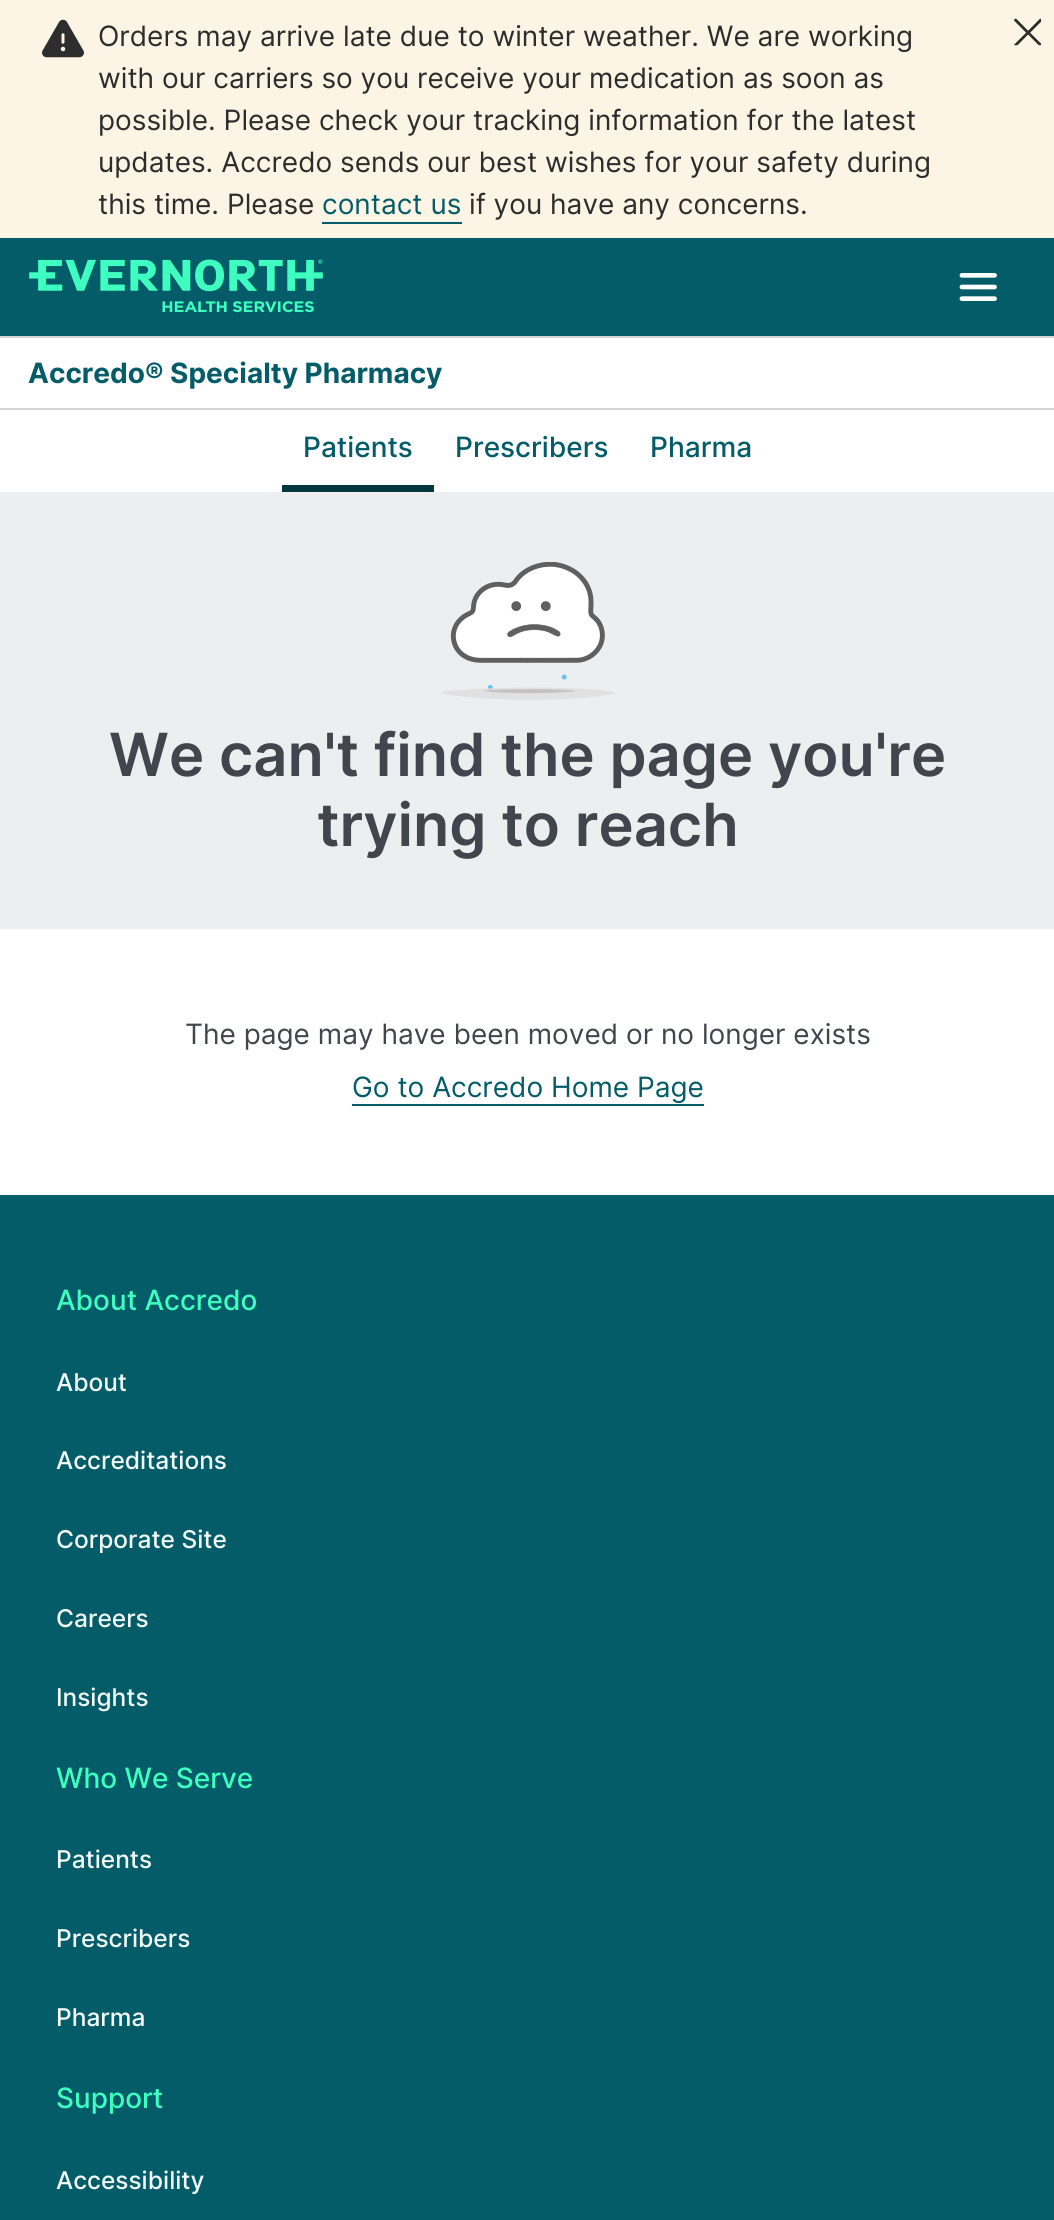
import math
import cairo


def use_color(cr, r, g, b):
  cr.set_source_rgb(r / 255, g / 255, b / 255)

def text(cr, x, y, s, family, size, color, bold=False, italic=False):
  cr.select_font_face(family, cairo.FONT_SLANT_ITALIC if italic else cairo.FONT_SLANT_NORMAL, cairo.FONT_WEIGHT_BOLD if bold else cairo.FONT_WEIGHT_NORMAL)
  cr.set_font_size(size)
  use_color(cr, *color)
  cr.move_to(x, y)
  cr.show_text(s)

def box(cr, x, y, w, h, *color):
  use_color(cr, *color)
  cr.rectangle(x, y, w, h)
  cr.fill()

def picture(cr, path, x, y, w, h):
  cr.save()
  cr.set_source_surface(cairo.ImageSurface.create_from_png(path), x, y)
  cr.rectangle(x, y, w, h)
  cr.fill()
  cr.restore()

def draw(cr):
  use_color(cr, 255, 255, 255)
  cr.paint()
  box(cr, 0, 0, 1054, 238, 252, 245, 229)
  picture(cr, "img_01.png", 42, 19, 42, 39)
  box(cr, 322, 222, 140, 2, 3, 92, 103)
  picture(cr, "img_02.png", 1014, 18, 27, 28)
  box(cr, 0, 238, 1054, 98, 3, 92, 103)
  picture(cr, "img_03.png", 29, 259, 294, 54)
  picture(cr, "img_04.png", 959, 273, 38, 28)
  box(cr, 0, 336, 1054, 2, 213, 213, 213)
  box(cr, 0, 408, 1054, 2, 213, 213, 213)
  box(cr, 282, 485, 152, 7, 0, 54, 61)
  box(cr, 0, 492, 1054, 437, 237, 238, 239)
  picture(cr, "img_05.png", 442, 562, 173, 138)
  box(cr, 352, 1104, 352, 2, 3, 92, 103)
  box(cr, 0, 1195, 1054, 1025, 3, 92, 103)
  text(cr, 98, 46, "Orders may arrive late due to winter weather. We are working", "Inter", 28, (45, 45, 45))
  text(cr, 98, 88, "with our carriers so you receive your medication as soon as", "Inter", 28, (45, 45, 45))
  text(cr, 98, 130, "possible. Please check your tracking information for the latest", "Inter", 28, (45, 45, 45))
  text(cr, 98, 172, "updates. Accredo sends our best wishes for your safety during", "Inter", 28, (45, 45, 45))
  text(cr, 98, 214, "this time. Please", "Inter", 28, (45, 45, 45))
  text(cr, 322, 214, "contact us", "Inter", 28, (3, 92, 103))
  text(cr, 469, 214, "if you have any concerns.", "Inter", 28, (45, 45, 45))
  text(cr, 28, 383, "Accredo® Specialty Pharmacy", "Inter", 28, (3, 92, 103), bold=True)
  text(cr, 303, 457, "Patients", "Inter Medium", 28, (3, 92, 103))
  text(cr, 455, 457, "Prescribers", "Inter Medium", 28, (3, 92, 103))
  text(cr, 650, 457, "Pharma", "Inter Medium", 28, (3, 92, 103))
  text(cr, 109, 776, "We can't find the page you're", "Inter SemiBold", 59.5, (64, 69, 78))
  text(cr, 317, 846, "trying to reach", "Inter SemiBold", 59.5, (64, 69, 78))
  text(cr, 185, 1044, "The page may have been moved or no longer exists", "Inter", 28, (64, 69, 78))
  text(cr, 352, 1097, "Go to Accredo Home Page", "Inter", 28, (3, 92, 103))
  text(cr, 56, 1310, "About Accredo", "Inter Medium", 28, (62, 255, 192))
  text(cr, 56, 1391, "About", "Inter Medium", 24.5, (243, 250, 250))
  text(cr, 56, 1469, "Accreditations", "Inter Medium", 24.5, (243, 250, 250))
  text(cr, 56, 1548, "Corporate Site", "Inter Medium", 24.5, (243, 250, 250))
  text(cr, 56, 1627, "Careers", "Inter Medium", 24.5, (243, 250, 250))
  text(cr, 56, 1706, "Insights", "Inter Medium", 24.5, (243, 250, 250))
  text(cr, 56, 1788, "Who We Serve", "Inter Medium", 28, (62, 255, 192))
  text(cr, 56, 1868, "Patients", "Inter Medium", 24.5, (243, 250, 250))
  text(cr, 56, 1947, "Prescribers", "Inter Medium", 24.5, (243, 250, 250))
  text(cr, 56, 2026, "Pharma", "Inter Medium", 24.5, (243, 250, 250))
  text(cr, 56, 2108, "Support", "Inter Medium", 28, (62, 255, 192))
  text(cr, 56, 2189, "Accessibility", "Inter Medium", 24.5, (243, 250, 250))


surface = cairo.ImageSurface(cairo.FORMAT_RGB24, 1054, 2220)
cr = cairo.Context(surface)
options = cairo.FontOptions()
options.set_hint_metrics(cairo.HINT_METRICS_OFF)
options.set_hint_style(cairo.HINT_STYLE_NONE)
cr.set_font_options(options)
cr.set_miter_limit(4)
draw(cr)
surface.write_to_png("out.png")
